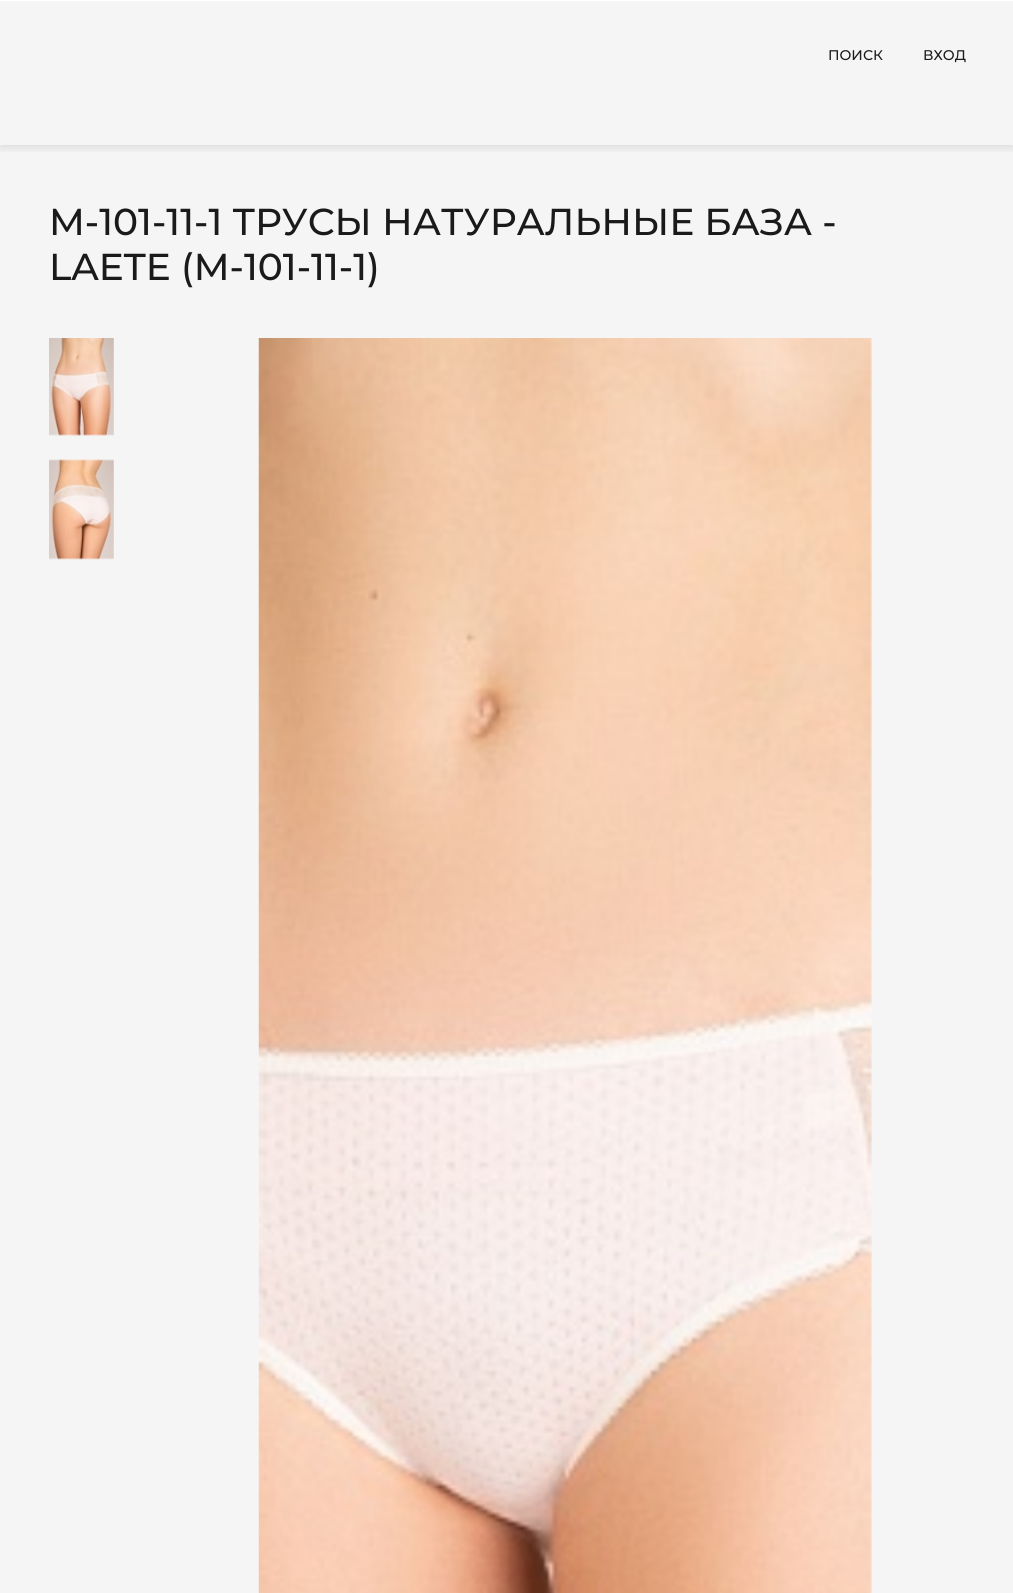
import math
import cairo


def use_color(cr, r, g, b):
  cr.set_source_rgb(r / 255, g / 255, b / 255)

def text(cr, x, y, s, family, size, color, bold=False, italic=False):
  cr.select_font_face(family, cairo.FONT_SLANT_ITALIC if italic else cairo.FONT_SLANT_NORMAL, cairo.FONT_WEIGHT_BOLD if bold else cairo.FONT_WEIGHT_NORMAL)
  cr.set_font_size(size)
  use_color(cr, *color)
  cr.move_to(x, y)
  cr.show_text(s)

def box(cr, x, y, w, h, *color):
  use_color(cr, *color)
  cr.rectangle(x, y, w, h)
  cr.fill()

def round_rect(cr, x, y, w, h, r):
  cr.new_sub_path()
  for i, (u, v) in enumerate([(x + w - r, y + h - r), (x + r, y + h - r), (x + r, y + r), (x + w - r, y + r)]):
    cr.arc(u, v, r, i * math.pi / 2, (i + 1) * math.pi / 2)
  cr.close_path()

def shadow(cr, x, y, w, h, r, blur, alpha):
  cr.push_group_with_content(cairo.CONTENT_ALPHA)
  cr.set_operator(cairo.OPERATOR_SOURCE)
  for i in range(15, -16, -2):
    e = blur * i / 6
    if min(w, h) + 2 * e > 0:
      cr.set_source_rgba(0, 0, 0, alpha * math.erfc((i - 1) / 8.5) / 2)
      round_rect(cr, x - e, y - e, w + 2 * e, h + 2 * e, max(0, min(r + e + blur * .6, min(w, h) / 2 + e)))
      cr.fill()
  cr.mask(cr.pop_group())

def picture(cr, path, x, y, w, h):
  cr.save()
  cr.set_source_surface(cairo.ImageSurface.create_from_png(path), x, y)
  cr.rectangle(x, y, w, h)
  cr.fill()
  cr.restore()

def draw(cr):
  use_color(cr, 245, 245, 245)
  cr.paint()
  cr.save()
  cr.rectangle(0, 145, 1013, 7)
  cr.clip()
  use_color(cr, 0, 0, 0)
  shadow(cr, 0, 4, 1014, 145, 0, 4, 0.09)
  cr.restore()
  box(cr, 0, 0, 1013, 1, 255, 255, 255)
  picture(cr, "img_01.png", 49, 338, 65, 98)
  picture(cr, "img_02.png", 49, 459, 65, 101)
  picture(cr, "img_03.png", 258, 338, 614, 1255)
  text(cr, 828, 60, "ПОИСК", "Montserrat Medium", 14, (26, 26, 26))
  text(cr, 923, 60, "ВХОД", "Montserrat Medium", 14, (26, 26, 26))
  text(cr, 49, 235, "M-101-11-1 ТРУСЫ НАТУРАЛЬНЫЕ БАЗА -", "Montserrat Medium", 37.5, (26, 26, 26))
  text(cr, 49, 280, "LAETE (M-101-11-1)", "Montserrat Medium", 37.5, (26, 26, 26))


surface = cairo.ImageSurface(cairo.FORMAT_RGB24, 1013, 1593)
cr = cairo.Context(surface)
options = cairo.FontOptions()
options.set_hint_metrics(cairo.HINT_METRICS_OFF)
options.set_hint_style(cairo.HINT_STYLE_NONE)
cr.set_font_options(options)
cr.set_miter_limit(4)
draw(cr)
surface.write_to_png("out.png")
